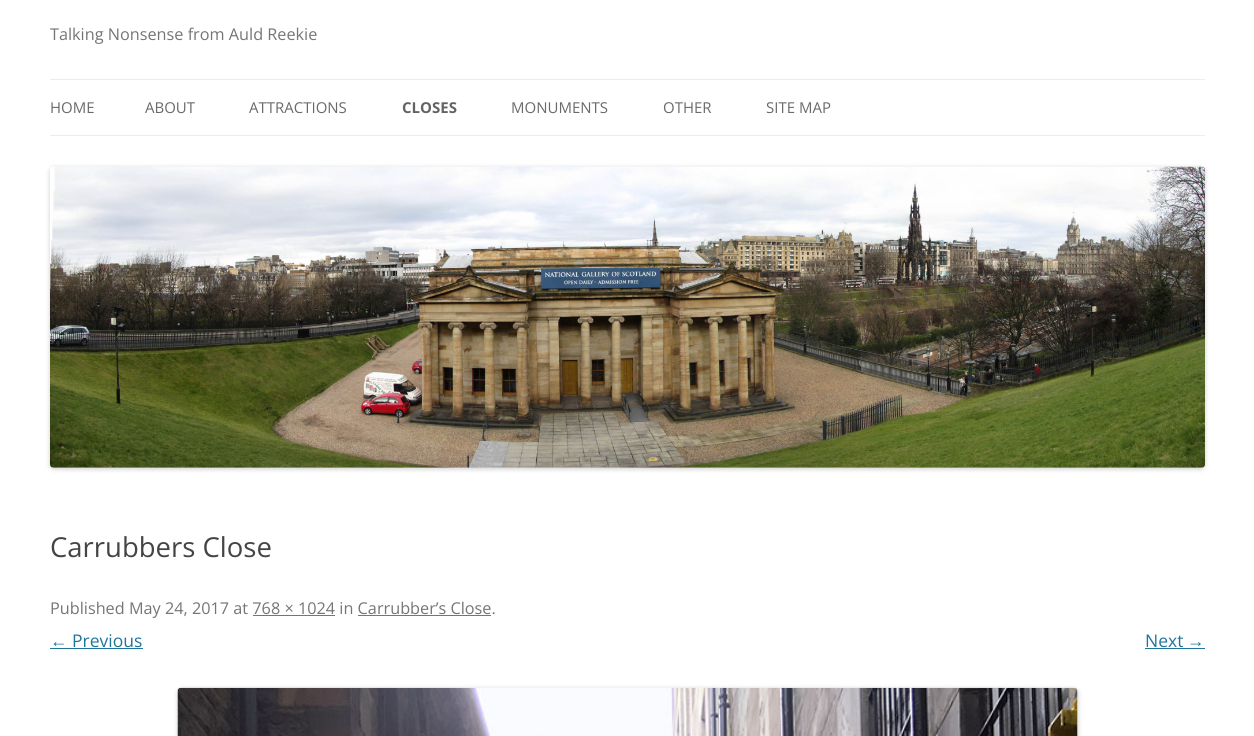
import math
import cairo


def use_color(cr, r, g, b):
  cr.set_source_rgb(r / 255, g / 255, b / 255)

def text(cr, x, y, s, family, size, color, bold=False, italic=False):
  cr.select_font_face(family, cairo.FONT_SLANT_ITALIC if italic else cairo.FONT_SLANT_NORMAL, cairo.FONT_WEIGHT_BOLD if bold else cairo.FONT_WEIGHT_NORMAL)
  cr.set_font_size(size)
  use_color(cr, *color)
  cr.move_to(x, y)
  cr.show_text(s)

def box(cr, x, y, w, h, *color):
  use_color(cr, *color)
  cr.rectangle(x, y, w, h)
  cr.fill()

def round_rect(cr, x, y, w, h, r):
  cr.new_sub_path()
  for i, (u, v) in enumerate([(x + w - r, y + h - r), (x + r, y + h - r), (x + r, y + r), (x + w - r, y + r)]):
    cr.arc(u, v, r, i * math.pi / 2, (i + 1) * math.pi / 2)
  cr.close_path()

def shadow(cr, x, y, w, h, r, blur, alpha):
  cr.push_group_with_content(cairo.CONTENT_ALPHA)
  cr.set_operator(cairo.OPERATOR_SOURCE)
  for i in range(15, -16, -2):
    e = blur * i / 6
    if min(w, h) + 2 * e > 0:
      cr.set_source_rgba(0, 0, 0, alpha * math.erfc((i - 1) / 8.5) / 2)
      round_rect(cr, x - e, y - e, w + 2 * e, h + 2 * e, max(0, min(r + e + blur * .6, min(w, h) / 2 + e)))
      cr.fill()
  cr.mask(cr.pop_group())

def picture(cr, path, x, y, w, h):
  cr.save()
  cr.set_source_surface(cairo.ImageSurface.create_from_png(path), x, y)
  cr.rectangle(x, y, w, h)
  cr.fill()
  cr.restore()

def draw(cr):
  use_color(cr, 255, 255, 255)
  cr.paint()
  box(cr, 50, 79, 1155, 1, 237, 237, 237)
  box(cr, 50, 135, 1155, 1, 237, 237, 237)
  use_color(cr, 0, 0, 0)
  shadow(cr, 50, 168, 1155, 301, 4, 2.5, 0.2)
  picture(cr, "img_01.png", 50, 166, 1155, 302)
  box(cr, 253, 615, 82, 1, 117, 117, 117)
  box(cr, 358, 615, 133, 1, 117, 117, 117)
  box(cr, 50, 648, 93, 1, 33, 117, 155)
  box(cr, 1145, 648, 60, 1, 33, 117, 155)
  use_color(cr, 0, 0, 0)
  shadow(cr, 178, 689, 900, 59, 4, 2.5, 0.2)
  picture(cr, "img_02.png", 177, 687, 901, 49)
  text(cr, 50, 40, "Talking Nonsense from Auld Reekie", "Open Sans", 16.25, (117, 117, 117))
  text(cr, 50, 113, "HOME", "Open Sans", 15, (106, 106, 106))
  text(cr, 145, 113, "ABOUT", "Open Sans", 15, (106, 106, 106))
  text(cr, 249, 113, "ATTRACTIONS", "Open Sans", 15, (106, 106, 106))
  text(cr, 402, 113, "CLOSES", "Open Sans", 15, (99, 99, 99), bold=True)
  text(cr, 511, 113, "MONUMENTS", "Open Sans", 15, (106, 106, 106))
  text(cr, 663, 113, "OTHER", "Open Sans", 15, (106, 106, 106))
  text(cr, 766, 113, "SITE MAP", "Open Sans", 15, (106, 106, 106))
  text(cr, 50, 557, "Carrubbers Close", "Open Sans", 27.5, (68, 68, 68))
  text(cr, 50, 614, "Published May 24, 2017 at 768 × 1024 in Carrubber’s Close.", "Open Sans", 16.25, (117, 117, 117))
  text(cr, 50, 647, "←", "Liberation Sans", 17.5, (33, 117, 155))
  text(cr, 72, 647, "Previous", "Open Sans", 17.5, (33, 117, 155))
  text(cr, 1145, 647, "Next", "Open Sans", 17.5, (33, 117, 155))
  text(cr, 1187, 647, "→", "Liberation Sans", 17.5, (33, 117, 155))


surface = cairo.ImageSurface(cairo.FORMAT_RGB24, 1254, 736)
cr = cairo.Context(surface)
options = cairo.FontOptions()
options.set_hint_metrics(cairo.HINT_METRICS_OFF)
options.set_hint_style(cairo.HINT_STYLE_NONE)
cr.set_font_options(options)
cr.set_miter_limit(4)
draw(cr)
surface.write_to_png("out.png")
